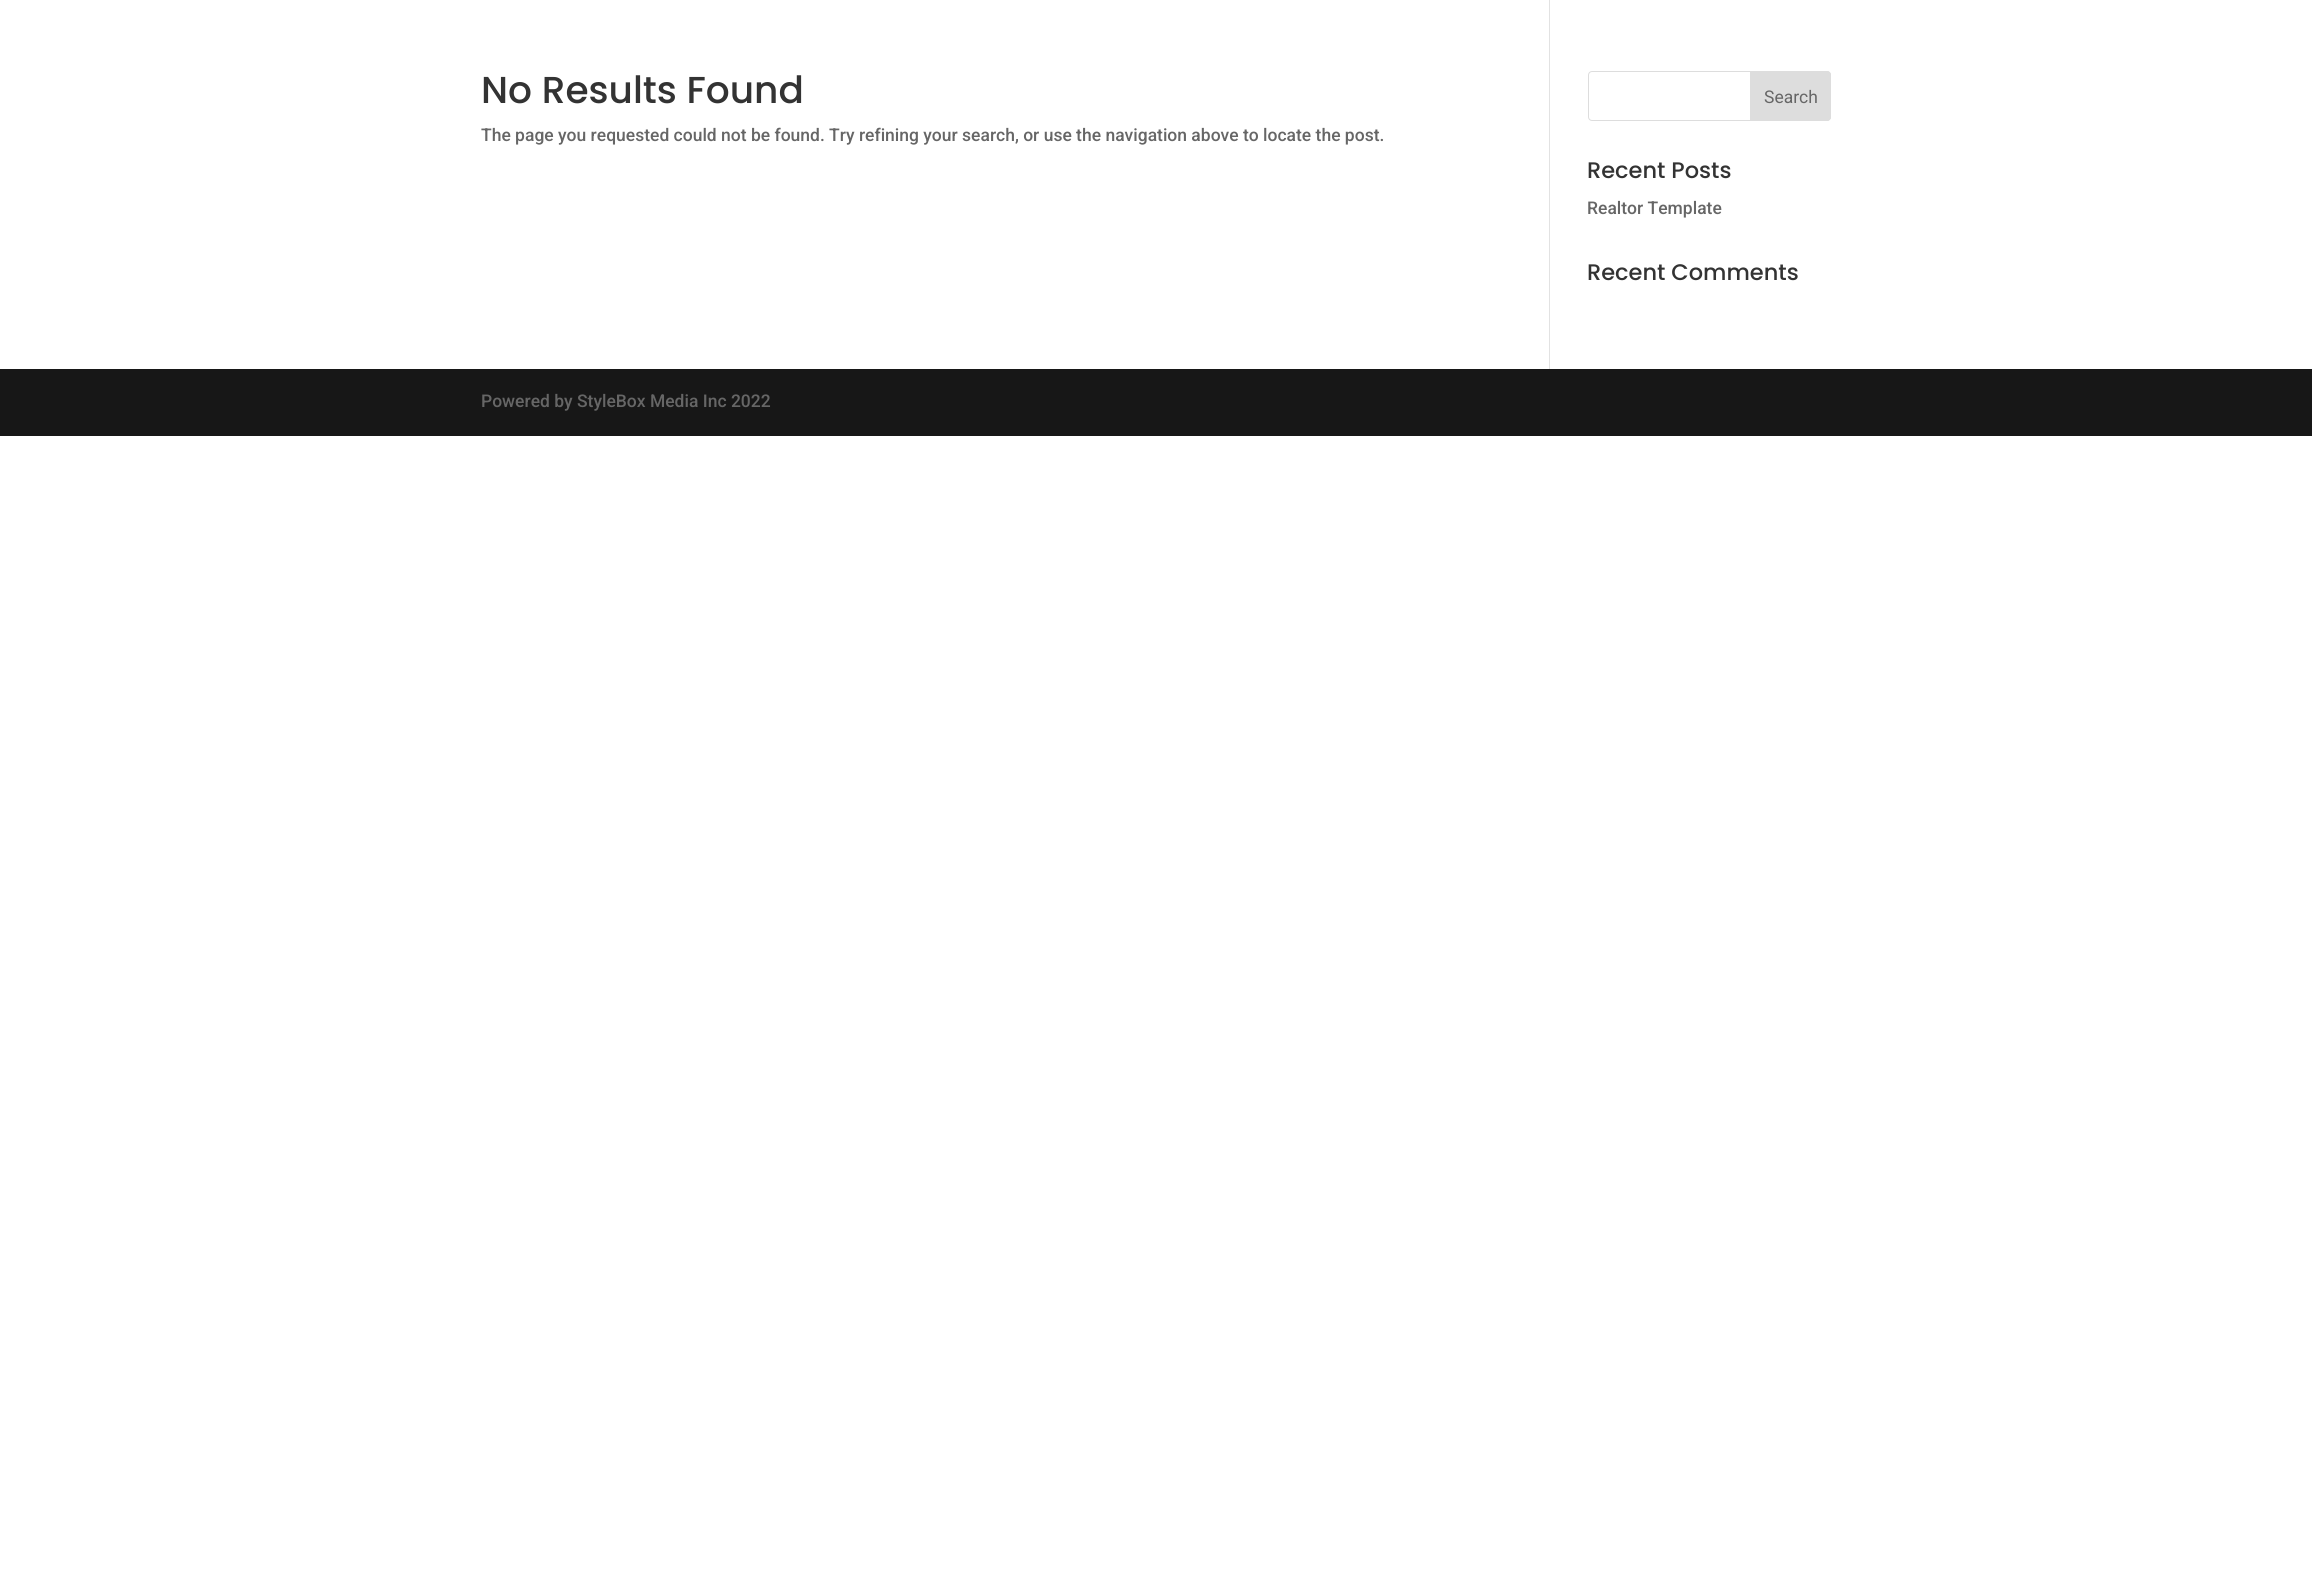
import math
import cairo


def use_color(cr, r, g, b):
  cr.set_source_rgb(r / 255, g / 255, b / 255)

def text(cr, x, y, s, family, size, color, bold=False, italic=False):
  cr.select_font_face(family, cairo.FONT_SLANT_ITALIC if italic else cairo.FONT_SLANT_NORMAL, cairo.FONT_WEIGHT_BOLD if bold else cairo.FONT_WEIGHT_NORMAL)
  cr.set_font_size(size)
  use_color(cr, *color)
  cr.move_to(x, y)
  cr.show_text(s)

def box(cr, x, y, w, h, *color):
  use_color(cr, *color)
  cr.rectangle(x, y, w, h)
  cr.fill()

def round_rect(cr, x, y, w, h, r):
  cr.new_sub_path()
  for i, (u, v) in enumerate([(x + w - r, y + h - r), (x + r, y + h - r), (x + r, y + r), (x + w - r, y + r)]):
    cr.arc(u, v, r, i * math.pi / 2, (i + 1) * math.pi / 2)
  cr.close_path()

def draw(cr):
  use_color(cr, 255, 255, 255)
  cr.paint()
  box(cr, 1549, 0, 1, 369, 226, 226, 226)
  round_rect(cr, 1588.5, 71.5, 242, 49, 3.5)
  use_color(cr, 221, 221, 221)
  cr.set_line_width(1)
  cr.stroke()
  cr.new_path()
  cr.move_to(1750.5, 71.5)
  cr.line_to(1827, 71.5)
  cr.curve_to(1829, 71.5, 1830.5, 73, 1830.5, 75)
  cr.line_to(1830.5, 117)
  cr.curve_to(1830.5, 119, 1829, 120.5, 1827, 120.5)
  cr.line_to(1750.5, 120.5)
  cr.close_path()
  cr.fill_preserve()
  cr.stroke()
  box(cr, 0, 369, 2312, 67, 23, 23, 23)
  text(cr, 481, 103, "No Results Found", "Poppins Medium", 37.5, (51, 51, 51))
  text(cr, 481, 141, "The page you requested could not be found. Try refining your search, or use the navigation above to locate the post.", "Roboto Medium", 17.5, (102, 102, 102))
  text(cr, 1764, 103, "Search", "Roboto", 17.5, (102, 102, 102))
  text(cr, 1587, 178, "Recent Posts", "Poppins Medium", 22.5, (51, 51, 51))
  text(cr, 1587, 214, "Realtor Template", "Roboto Medium", 17.5, (102, 102, 102))
  text(cr, 1587, 280, "Recent Comments", "Poppins Medium", 22.5, (51, 51, 51))
  text(cr, 481, 407, "Powered by StyleBox Media Inc 2022", "Roboto Medium", 17.5, (102, 102, 102))


surface = cairo.ImageSurface(cairo.FORMAT_RGB24, 2312, 1595)
cr = cairo.Context(surface)
options = cairo.FontOptions()
options.set_hint_metrics(cairo.HINT_METRICS_OFF)
options.set_hint_style(cairo.HINT_STYLE_NONE)
cr.set_font_options(options)
cr.set_miter_limit(4)
draw(cr)
surface.write_to_png("out.png")
